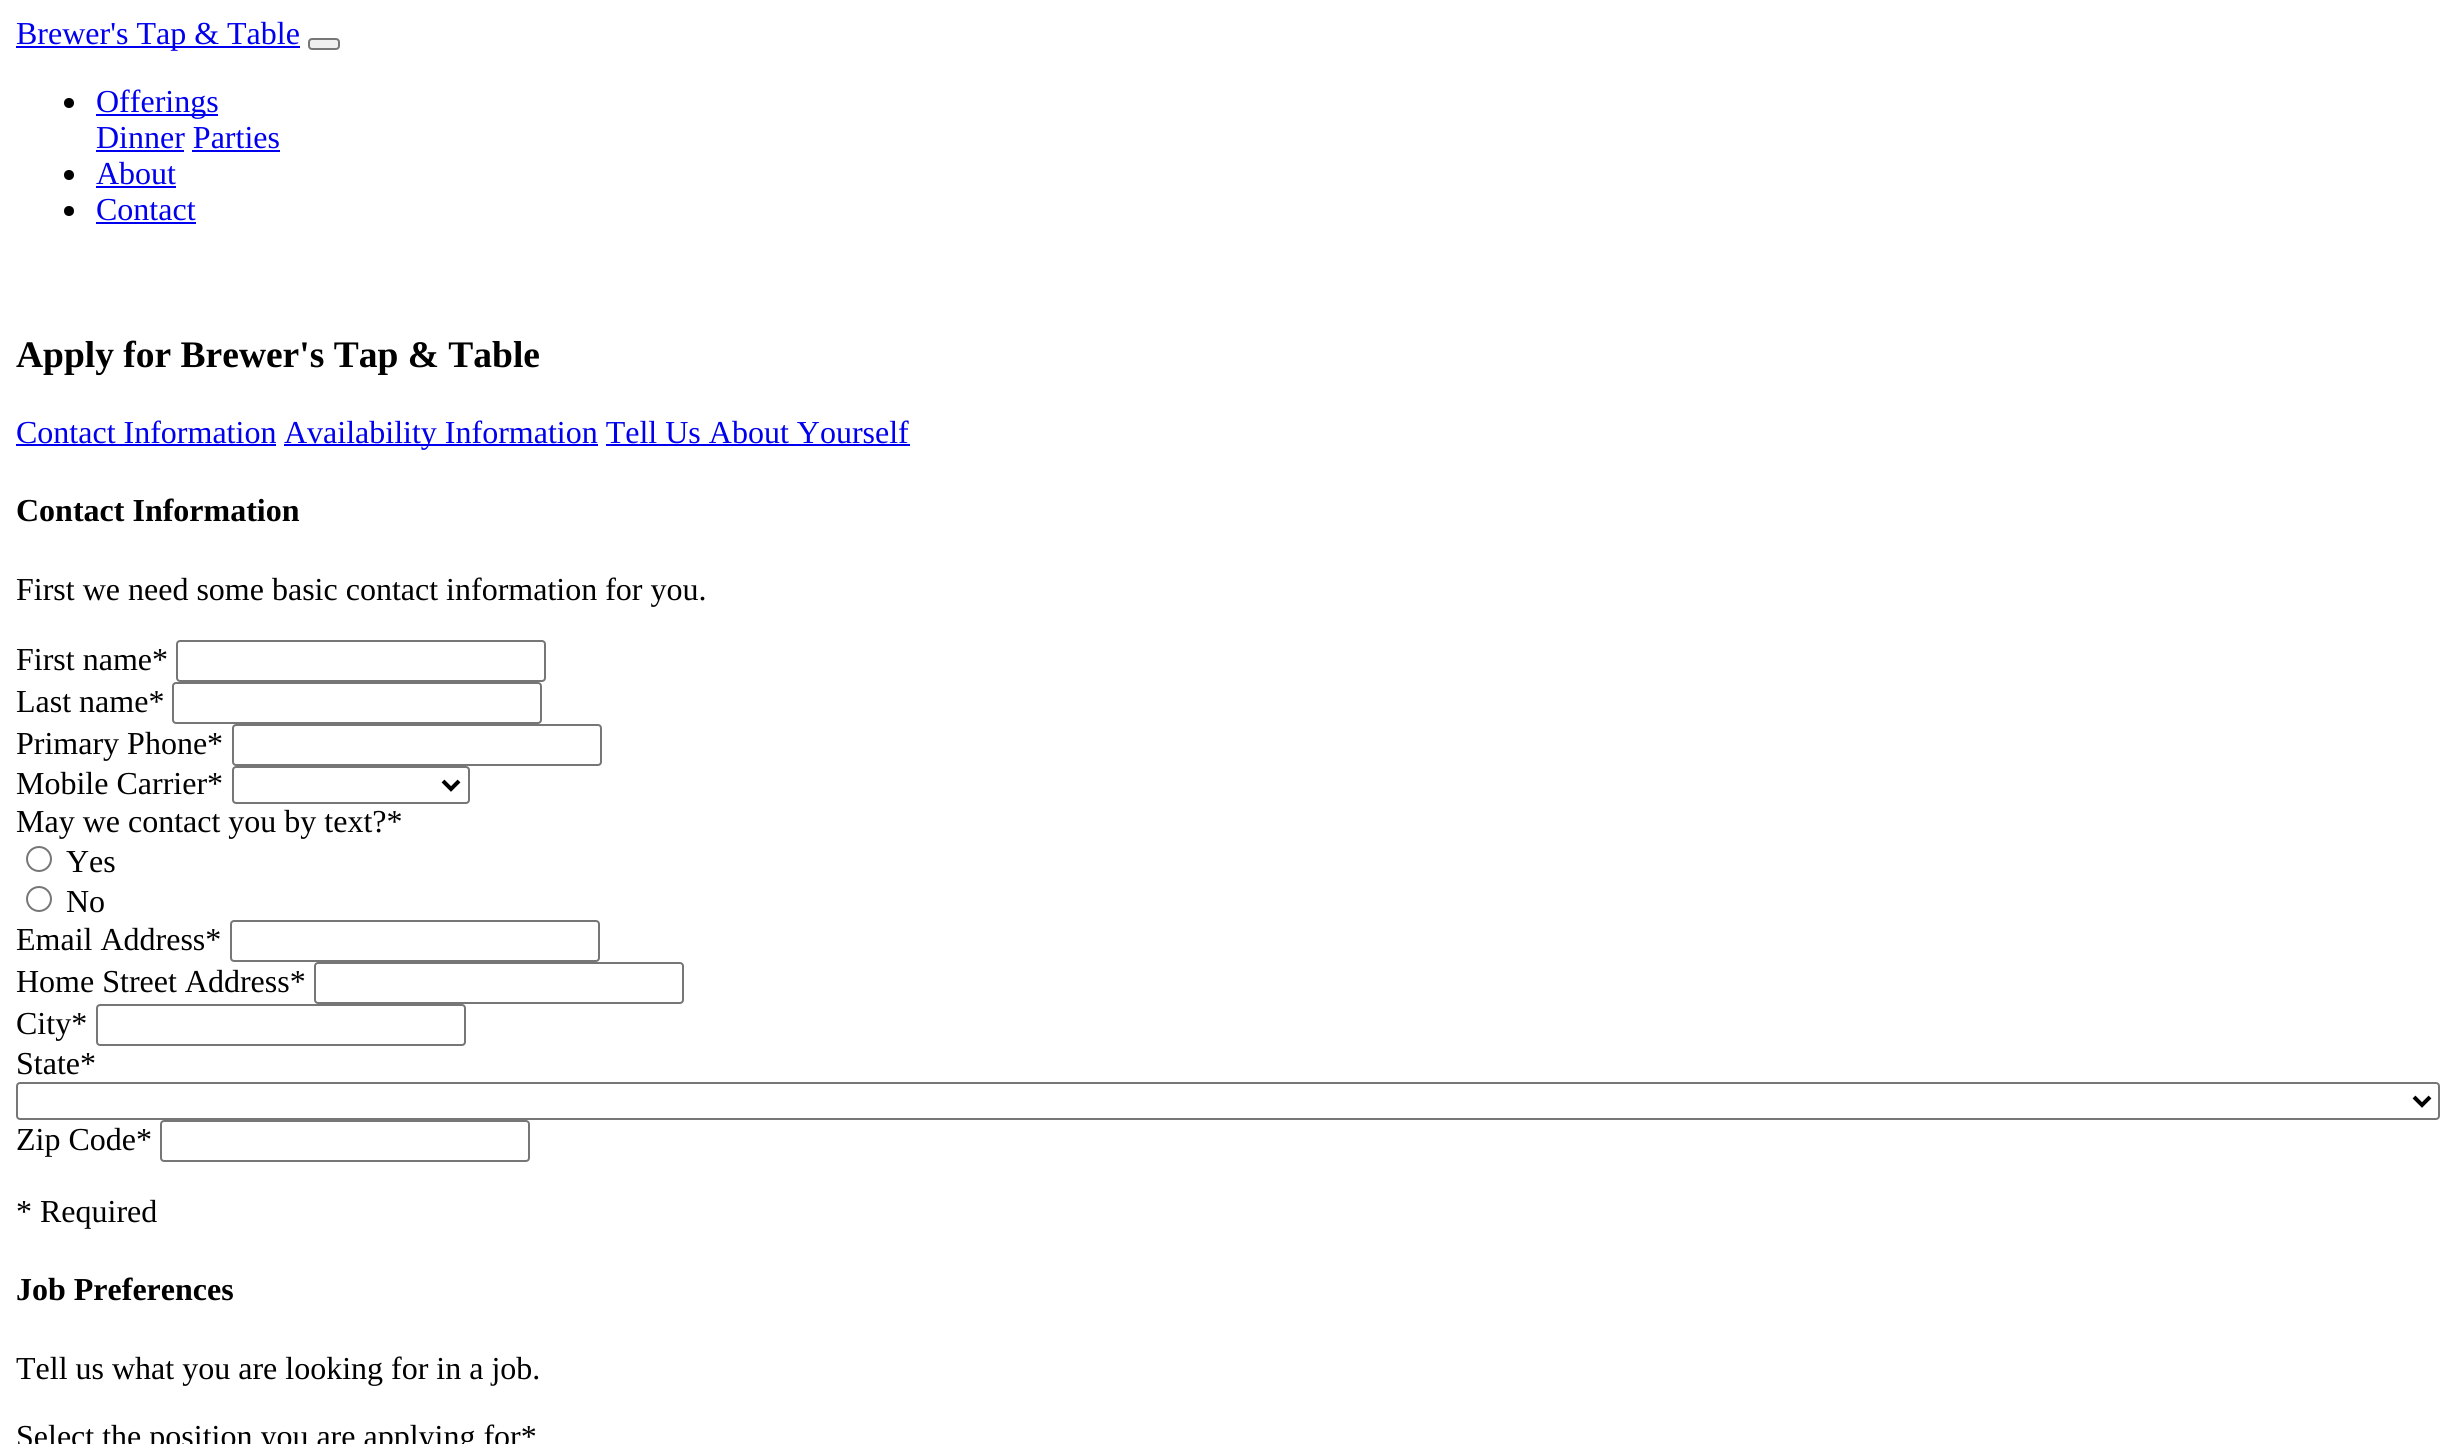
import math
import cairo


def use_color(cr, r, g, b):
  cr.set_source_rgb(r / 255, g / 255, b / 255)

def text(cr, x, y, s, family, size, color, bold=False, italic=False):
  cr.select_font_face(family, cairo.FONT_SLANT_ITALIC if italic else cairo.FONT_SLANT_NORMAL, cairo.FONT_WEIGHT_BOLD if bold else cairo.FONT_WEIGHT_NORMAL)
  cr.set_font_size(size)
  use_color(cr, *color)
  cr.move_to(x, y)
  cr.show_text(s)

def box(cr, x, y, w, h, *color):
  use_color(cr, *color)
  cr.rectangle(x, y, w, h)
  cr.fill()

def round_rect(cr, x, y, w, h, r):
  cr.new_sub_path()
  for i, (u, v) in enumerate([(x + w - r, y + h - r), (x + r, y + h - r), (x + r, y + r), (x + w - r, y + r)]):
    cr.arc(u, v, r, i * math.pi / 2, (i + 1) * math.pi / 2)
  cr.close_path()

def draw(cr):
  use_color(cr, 255, 255, 255)
  cr.paint()
  box(cr, 16, 46, 284, 2, 0, 0, 238)
  use_color(cr, 239, 239, 239)
  round_rect(cr, 309, 39, 30, 10, 3)
  cr.fill_preserve()
  use_color(cr, 118, 118, 118)
  cr.stroke()
  use_color(cr, 0, 0, 0)
  cr.arc(69, 103, 5, 0, 2 * math.pi)
  cr.fill()
  box(cr, 96, 114, 122, 2, 0, 0, 238)
  box(cr, 96, 150, 88, 2, 0, 0, 238)
  box(cr, 192, 150, 88, 2, 0, 0, 238)
  use_color(cr, 0, 0, 0)
  cr.arc(69, 175, 5, 0, 2 * math.pi)
  cr.fill()
  box(cr, 96, 186, 80, 2, 0, 0, 238)
  use_color(cr, 0, 0, 0)
  cr.arc(69, 211, 5, 0, 2 * math.pi)
  cr.fill()
  box(cr, 96, 222, 100, 2, 0, 0, 238)
  box(cr, 16, 444, 260, 2, 0, 0, 238)
  box(cr, 284, 444, 314, 2, 0, 0, 238)
  box(cr, 606, 444, 304, 2, 0, 0, 238)
  round_rect(cr, 177, 641, 368, 40, 3)
  use_color(cr, 118, 118, 118)
  cr.stroke()
  round_rect(cr, 173, 683, 368, 40, 3)
  cr.stroke()
  round_rect(cr, 233, 725, 368, 40, 3)
  cr.stroke()
  round_rect(cr, 233, 767, 236, 36, 3)
  cr.stroke()
  cr.new_path()
  cr.move_to(443, 781)
  cr.line_to(451, 789)
  cr.line_to(459, 781)
  use_color(cr, 0, 0, 0)
  cr.set_line_width(4)
  cr.stroke()
  cr.arc(39, 859, 12, 0, 2 * math.pi)
  use_color(cr, 118, 118, 118)
  cr.set_line_width(2)
  cr.stroke()
  cr.arc(39, 899, 12, 0, 2 * math.pi)
  cr.stroke()
  round_rect(cr, 231, 921, 368, 40, 3)
  cr.stroke()
  round_rect(cr, 315, 963, 368, 40, 3)
  cr.stroke()
  round_rect(cr, 97, 1005, 368, 40, 3)
  cr.stroke()
  round_rect(cr, 17, 1083, 2422, 36, 3)
  cr.stroke()
  cr.new_path()
  cr.move_to(2414, 1097)
  cr.line_to(2422, 1105)
  cr.line_to(2430, 1097)
  use_color(cr, 0, 0, 0)
  cr.set_line_width(4)
  cr.stroke()
  round_rect(cr, 161, 1121, 368, 40, 3)
  use_color(cr, 118, 118, 118)
  cr.set_line_width(2)
  cr.stroke()
  text(cr, 16, 44, "Brewer's Tap & Table", "Liberation Serif", 32, (0, 0, 238))
  text(cr, 96, 112, "Offerings", "Liberation Serif", 32, (0, 0, 238))
  text(cr, 96, 148, "Dinner Parties", "Liberation Serif", 32, (0, 0, 238))
  text(cr, 96, 184, "About", "Liberation Serif", 32, (0, 0, 238))
  text(cr, 96, 220, "Contact", "Liberation Serif", 32, (0, 0, 238))
  text(cr, 16, 367, "Apply for Brewer's Tap & Table", "Liberation Serif", 37.5, (0, 0, 0), bold=True)
  text(cr, 16, 443, "Contact Information", "Liberation Serif", 32, (0, 0, 238))
  text(cr, 284, 443, "Availability Information Tell Us About Yourself", "Liberation Serif", 32, (0, 0, 238))
  text(cr, 16, 521, "Contact Information", "Liberation Serif", 32, (0, 0, 0), bold=True)
  text(cr, 16, 600, "First we need some basic contact information for you.", "Liberation Serif", 32, (0, 0, 0))
  text(cr, 16, 670, "First name*", "Liberation Serif", 32, (0, 0, 0))
  text(cr, 16, 712, "Last name*", "Liberation Serif", 32, (0, 0, 0))
  text(cr, 16, 754, "Primary Phone*", "Liberation Serif", 32, (0, 0, 0))
  text(cr, 16, 794, "Mobile Carrier*", "Liberation Serif", 32, (0, 0, 0))
  text(cr, 16, 832, "May we contact you by text?*", "Liberation Serif", 32, (0, 0, 0))
  text(cr, 66, 872, "Yes", "Liberation Serif", 32, (0, 0, 0))
  text(cr, 66, 912, "No", "Liberation Serif", 32, (0, 0, 0))
  text(cr, 16, 950, "Email Address*", "Liberation Serif", 32, (0, 0, 0))
  text(cr, 16, 992, "Home Street Address*", "Liberation Serif", 32, (0, 0, 0))
  text(cr, 16, 1034, "City*", "Liberation Serif", 32, (0, 0, 0))
  text(cr, 16, 1074, "State*", "Liberation Serif", 32, (0, 0, 0))
  text(cr, 16, 1150, "Zip Code*", "Liberation Serif", 32, (0, 0, 0))
  text(cr, 16, 1222, "* Required", "Liberation Serif", 32, (0, 0, 0))
  text(cr, 16, 1300, "Job Preferences", "Liberation Serif", 32, (0, 0, 0), bold=True)
  text(cr, 16, 1379, "Tell us what you are looking for in a job.", "Liberation Serif", 32, (0, 0, 0))
  text(cr, 16, 1447, "Select the position you are applying for*", "Liberation Serif", 32, (0, 0, 0))


surface = cairo.ImageSurface(cairo.FORMAT_RGB24, 2456, 1444)
cr = cairo.Context(surface)
options = cairo.FontOptions()
options.set_hint_metrics(cairo.HINT_METRICS_OFF)
options.set_hint_style(cairo.HINT_STYLE_NONE)
cr.set_font_options(options)
cr.set_miter_limit(4)
draw(cr)
surface.write_to_png("out.png")
